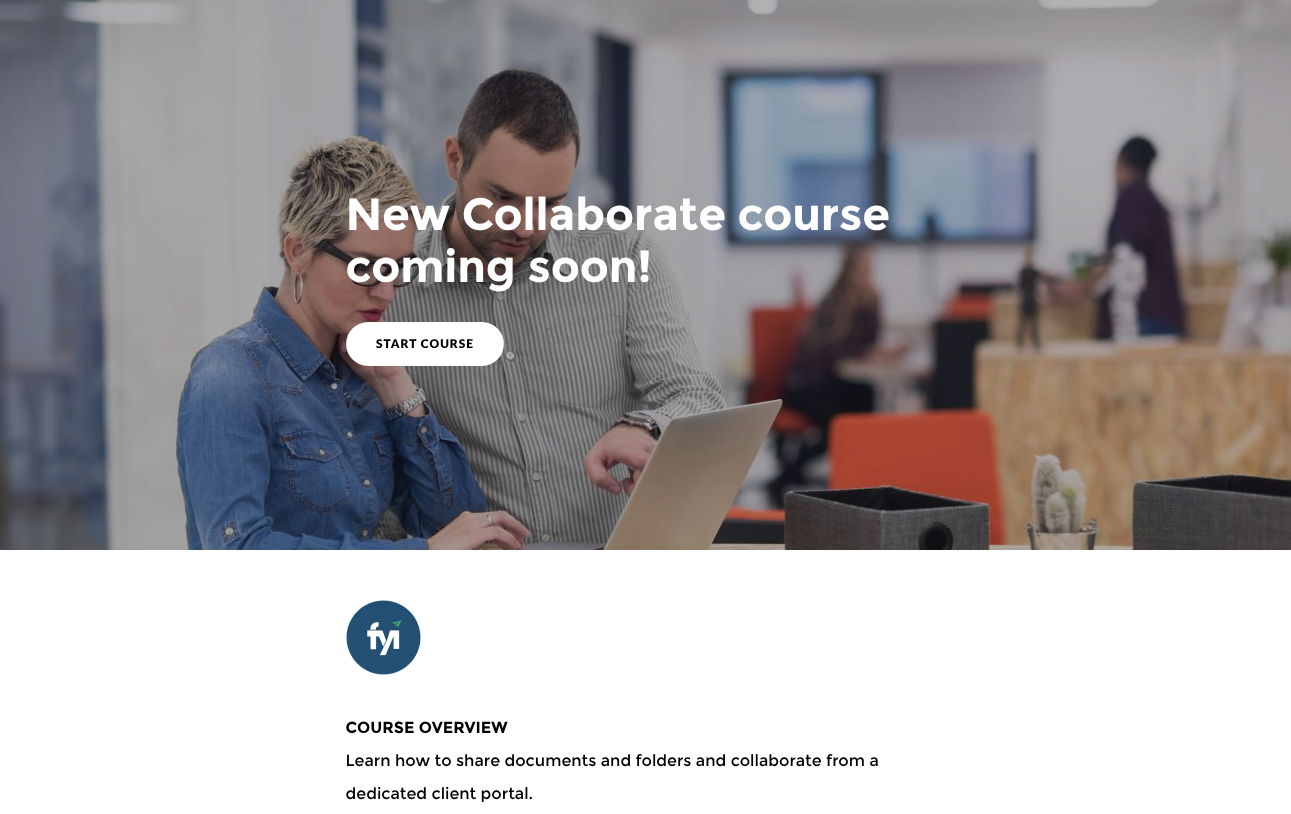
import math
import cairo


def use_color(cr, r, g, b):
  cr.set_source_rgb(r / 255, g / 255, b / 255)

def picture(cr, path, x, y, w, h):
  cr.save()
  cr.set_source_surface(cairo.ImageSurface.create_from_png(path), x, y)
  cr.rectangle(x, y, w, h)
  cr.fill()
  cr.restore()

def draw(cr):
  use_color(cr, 255, 255, 255)
  cr.paint()
  picture(cr, "img_01.png", 0, 0, 1291, 802)


surface = cairo.ImageSurface(cairo.FORMAT_RGB24, 1291, 814)
cr = cairo.Context(surface)
options = cairo.FontOptions()
options.set_hint_metrics(cairo.HINT_METRICS_OFF)
options.set_hint_style(cairo.HINT_STYLE_NONE)
cr.set_font_options(options)
cr.set_miter_limit(4)
draw(cr)
surface.write_to_png("out.png")
